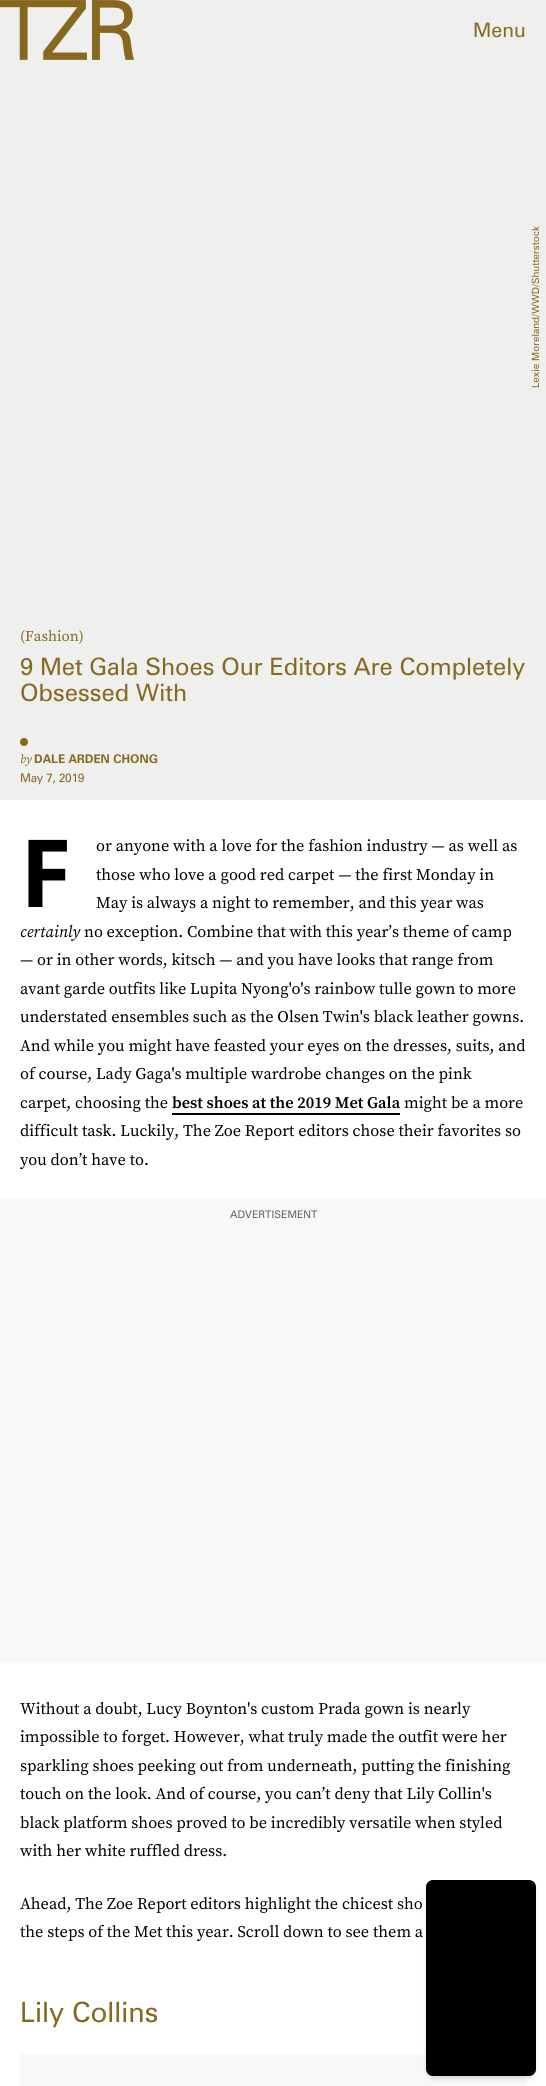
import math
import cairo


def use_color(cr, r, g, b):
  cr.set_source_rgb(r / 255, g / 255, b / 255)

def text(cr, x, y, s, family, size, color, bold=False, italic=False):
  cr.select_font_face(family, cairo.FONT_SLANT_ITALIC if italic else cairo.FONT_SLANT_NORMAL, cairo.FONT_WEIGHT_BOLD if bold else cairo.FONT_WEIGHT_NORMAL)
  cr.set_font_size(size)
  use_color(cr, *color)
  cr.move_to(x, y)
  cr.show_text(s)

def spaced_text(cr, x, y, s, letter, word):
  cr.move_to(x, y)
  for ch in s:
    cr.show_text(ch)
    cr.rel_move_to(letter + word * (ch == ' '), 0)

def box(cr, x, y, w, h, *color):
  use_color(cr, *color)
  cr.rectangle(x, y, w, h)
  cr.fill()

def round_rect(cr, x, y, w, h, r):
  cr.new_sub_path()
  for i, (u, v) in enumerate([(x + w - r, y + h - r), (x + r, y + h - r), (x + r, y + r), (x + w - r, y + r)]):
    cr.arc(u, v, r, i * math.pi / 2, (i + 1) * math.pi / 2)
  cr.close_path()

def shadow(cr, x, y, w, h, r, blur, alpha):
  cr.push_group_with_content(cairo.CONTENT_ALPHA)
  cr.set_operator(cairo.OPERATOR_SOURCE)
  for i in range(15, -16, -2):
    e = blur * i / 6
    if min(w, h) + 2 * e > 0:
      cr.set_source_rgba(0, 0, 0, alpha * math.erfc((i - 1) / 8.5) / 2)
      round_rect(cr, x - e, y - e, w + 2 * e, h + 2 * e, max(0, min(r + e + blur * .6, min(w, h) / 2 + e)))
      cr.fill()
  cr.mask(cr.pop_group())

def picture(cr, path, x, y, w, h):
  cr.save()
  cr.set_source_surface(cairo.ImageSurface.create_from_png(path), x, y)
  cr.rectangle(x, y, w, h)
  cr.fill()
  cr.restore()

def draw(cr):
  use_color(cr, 255, 255, 255)
  cr.paint()
  box(cr, 0, 0, 546, 800, 239, 240, 237)
  picture(cr, "img_01.png", 0, 0, 134, 60)
  use_color(cr, 135, 104, 33)
  cr.arc(24, 742, 4, 0, 2 * math.pi)
  cr.fill()
  box(cr, 172, 1113, 228, 2, 0, 0, 0)
  box(cr, 0, 1198, 546, 464, 248, 248, 248)
  box(cr, 20, 2054, 506, 32, 248, 248, 248)
  use_color(cr, 0, 0, 0)
  shadow(cr, 428, 1884, 106, 192, 5, 2, 0.1)
  shadow(cr, 427, 1885, 108, 194, 6, 3, 0.1)
  use_color(cr, 0, 0, 0)
  round_rect(cr, 426, 1880, 110, 196, 7)
  cr.fill()
  text(cr, 473, 37, "Menu", "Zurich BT", 20, (135, 104, 33))
  cr.save()
  cr.translate(539, 388)
  cr.rotate(-90 * math.pi / 180)
  text(cr, 0, 0, "Lexie Moreland/WWD/Shutterstock", "Zurich BT", 10, (135, 104, 33))
  cr.restore()
  text(cr, 20, 641, "(Fashion)", "Source Serif Pro", 15, (135, 104, 33))
  text(cr, 20, 675, "9 Met Gala Shoes Our Editors Are Completely", "Zurich BT", 24, (135, 104, 33))
  text(cr, 20, 701, "Obsessed With", "Zurich BT", 24, (135, 104, 33))
  text(cr, 20, 763, "by", "Source Serif Pro", 12, (135, 104, 33), italic=True)
  text(cr, 34, 763, "DALE ARDEN CHONG", "Zurich BT", 12, (135, 104, 33), bold=True)
  cr.select_font_face("Zurich BT")
  spaced_text(cr, 20, 782, "May 7, 2019", -0.25, 0)
  text(cr, 20, 907, "F", "Noto Sans", 94, (0, 0, 0), bold=True)
  text(cr, 96, 851, "or anyone with a love for the fashion industry — as well as", "Source Serif Pro", 16.3, (0, 0, 0))
  text(cr, 96, 880, "those who love a good red carpet — the first Monday in", "Source Serif Pro", 16.3, (0, 0, 0))
  text(cr, 96, 908, "May is always a night to remember, and this year was", "Source Serif Pro", 16.3, (0, 0, 0))
  text(cr, 20, 937, "certainly", "Source Serif Pro", 16.3, (0, 0, 0), italic=True)
  text(cr, 84, 937, "no exception. Combine that with this year’s theme of camp", "Source Serif Pro", 16.3, (0, 0, 0))
  text(cr, 20, 965, "— or in other words, kitsch — and you have looks that range from", "Source Serif Pro", 16.3, (0, 0, 0))
  text(cr, 20, 994, "avant garde outfits like Lupita Nyong'o's rainbow tulle gown to more", "Source Serif Pro", 16.3, (0, 0, 0))
  text(cr, 20, 1022, "understated ensembles such as the Olsen Twin's black leather gowns.", "Source Serif Pro", 16.3, (0, 0, 0))
  text(cr, 20, 1051, "And while you might have feasted your eyes on the dresses, suits, and", "Source Serif Pro", 16.3, (0, 0, 0))
  text(cr, 20, 1079, "of course, Lady Gaga's multiple wardrobe changes on the pink", "Source Serif Pro", 16.3, (0, 0, 0))
  text(cr, 20, 1108, "carpet, choosing the", "Source Serif Pro", 16.3, (0, 0, 0))
  text(cr, 172, 1108, "best shoes at the 2019 Met Gala", "Source Serif Pro SemiBold", 16.3, (0, 0, 0))
  text(cr, 404, 1108, "might be a more", "Source Serif Pro", 16.3, (0, 0, 0))
  text(cr, 20, 1136, "difficult task. Luckily, The Zoe Report editors chose their favorites so", "Source Serif Pro", 16.3, (0, 0, 0))
  text(cr, 20, 1165, "you don’t have to.", "Source Serif Pro", 16.3, (0, 0, 0))
  text(cr, 230, 1218, "ADVERTISEMENT", "Zurich BT", 10.5, (99, 99, 99))
  text(cr, 20, 1714, "Without a doubt, Lucy Boynton's custom Prada gown is nearly", "Source Serif Pro", 16.3, (0, 0, 0))
  text(cr, 20, 1742, "impossible to forget. However, what truly made the outfit were her", "Source Serif Pro", 16.3, (0, 0, 0))
  text(cr, 20, 1771, "sparkling shoes peeking out from underneath, putting the finishing", "Source Serif Pro", 16.3, (0, 0, 0))
  text(cr, 20, 1799, "touch on the look. And of course, you can’t deny that Lily Collin's", "Source Serif Pro", 16.3, (0, 0, 0))
  text(cr, 20, 1828, "black platform shoes proved to be incredibly versatile when styled", "Source Serif Pro", 16.3, (0, 0, 0))
  text(cr, 20, 1856, "with her white ruffled dress.", "Source Serif Pro", 16.3, (0, 0, 0))
  text(cr, 20, 1909, "Ahead, The Zoe Report editors highlight the chicest sho", "Source Serif Pro", 16.3, (0, 0, 0))
  text(cr, 20, 1937, "the steps of the Met this year. Scroll down to see them a", "Source Serif Pro", 16.3, (0, 0, 0))
  text(cr, 20, 2022, "Lily Collins", "Zurich BT", 28, (135, 104, 33))


surface = cairo.ImageSurface(cairo.FORMAT_RGB24, 546, 2086)
cr = cairo.Context(surface)
options = cairo.FontOptions()
options.set_hint_metrics(cairo.HINT_METRICS_OFF)
options.set_hint_style(cairo.HINT_STYLE_NONE)
cr.set_font_options(options)
cr.set_miter_limit(4)
draw(cr)
surface.write_to_png("out.png")
